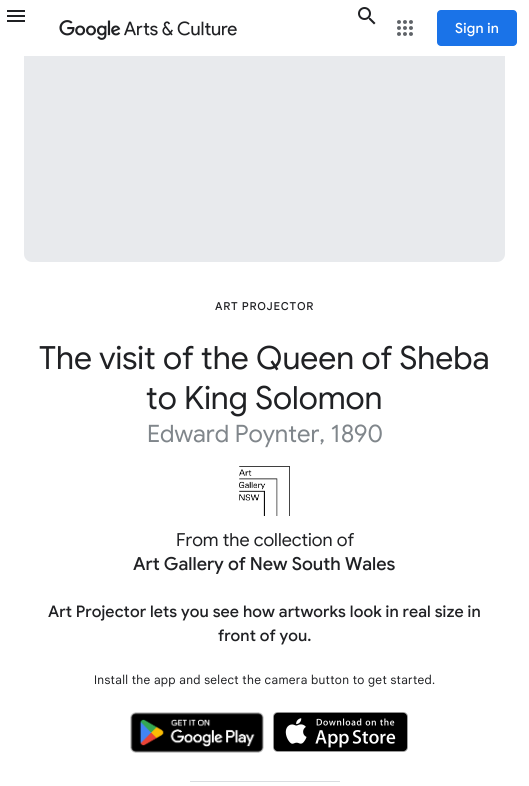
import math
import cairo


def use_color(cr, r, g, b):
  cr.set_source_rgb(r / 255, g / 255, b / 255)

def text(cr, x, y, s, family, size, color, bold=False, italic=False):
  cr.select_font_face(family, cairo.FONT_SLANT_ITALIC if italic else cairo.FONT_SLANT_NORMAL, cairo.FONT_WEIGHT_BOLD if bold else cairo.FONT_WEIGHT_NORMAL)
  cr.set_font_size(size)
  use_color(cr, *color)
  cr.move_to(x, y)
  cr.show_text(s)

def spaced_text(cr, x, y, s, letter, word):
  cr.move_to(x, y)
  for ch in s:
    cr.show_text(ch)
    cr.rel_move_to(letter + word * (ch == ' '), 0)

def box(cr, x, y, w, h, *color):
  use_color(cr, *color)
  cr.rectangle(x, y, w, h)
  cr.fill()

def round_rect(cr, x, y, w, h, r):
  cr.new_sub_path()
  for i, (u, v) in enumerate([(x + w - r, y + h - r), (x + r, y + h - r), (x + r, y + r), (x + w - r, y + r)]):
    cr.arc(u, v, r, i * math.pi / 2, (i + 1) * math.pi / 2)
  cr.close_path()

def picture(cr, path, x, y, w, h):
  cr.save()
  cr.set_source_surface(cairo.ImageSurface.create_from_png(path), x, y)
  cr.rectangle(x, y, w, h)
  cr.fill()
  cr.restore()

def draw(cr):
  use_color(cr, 255, 255, 255)
  cr.paint()
  use_color(cr, 232, 234, 237)
  round_rect(cr, 24, -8, 481, 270, 8)
  cr.fill()
  box(cr, 24, 0, 481, 56, 255, 255, 255)
  picture(cr, "img_01.png", 7, 10, 18, 12)
  picture(cr, "img_02.png", 59, 20, 178, 20)
  picture(cr, "img_03.png", 358, 7, 18, 18)
  picture(cr, "img_04.png", 397, 20, 16, 16)
  use_color(cr, 26, 115, 232)
  round_rect(cr, 437, 10, 80, 36, 4)
  cr.fill()
  picture(cr, "img_05.png", 239, 466, 51, 50)
  picture(cr, "img_06.png", 130, 712, 134, 41)
  picture(cr, "img_07.png", 273, 712, 135, 40)
  box(cr, 190, 781, 150, 1, 218, 220, 224)
  cr.select_font_face("Google Sans Medium")
  cr.set_font_size(14)
  use_color(cr, 255, 255, 255)
  spaced_text(cr, 455, 33, "Sign in", 0.25, 0)
  cr.select_font_face("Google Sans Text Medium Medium")
  cr.set_font_size(11)
  use_color(cr, 32, 33, 36)
  spaced_text(cr, 215, 310, "ART PROJECTOR", 0.75, 0)
  text(cr, 39, 369, "The visit of the Queen of Sheba", "Google Sans", 32, (32, 33, 36))
  text(cr, 146, 409, "to King Solomon", "Google Sans", 32, (32, 33, 36))
  text(cr, 147, 442, "Edward Poynter, 1890", "Google Sans", 24, (128, 134, 139))
  text(cr, 176, 546, "From the collection of", "Google Sans", 18, (32, 33, 36))
  text(cr, 133, 570, "Art Gallery of New South Wales", "Google Sans Medium", 18, (32, 33, 36))
  cr.set_font_size(16)
  spaced_text(cr, 48, 617, "Art Projector lets you see how artworks look in real size in", 0.1, 0)
  spaced_text(cr, 218, 641, "front of you.", 0.1, 0)
  cr.select_font_face("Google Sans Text")
  cr.set_font_size(12)
  spaced_text(cr, 94, 684, "Install the app and select the camera button to get started.", 0.3, 0)


surface = cairo.ImageSurface(cairo.FORMAT_RGB24, 529, 786)
cr = cairo.Context(surface)
options = cairo.FontOptions()
options.set_hint_metrics(cairo.HINT_METRICS_OFF)
options.set_hint_style(cairo.HINT_STYLE_NONE)
cr.set_font_options(options)
cr.set_miter_limit(4)
draw(cr)
surface.write_to_png("out.png")
